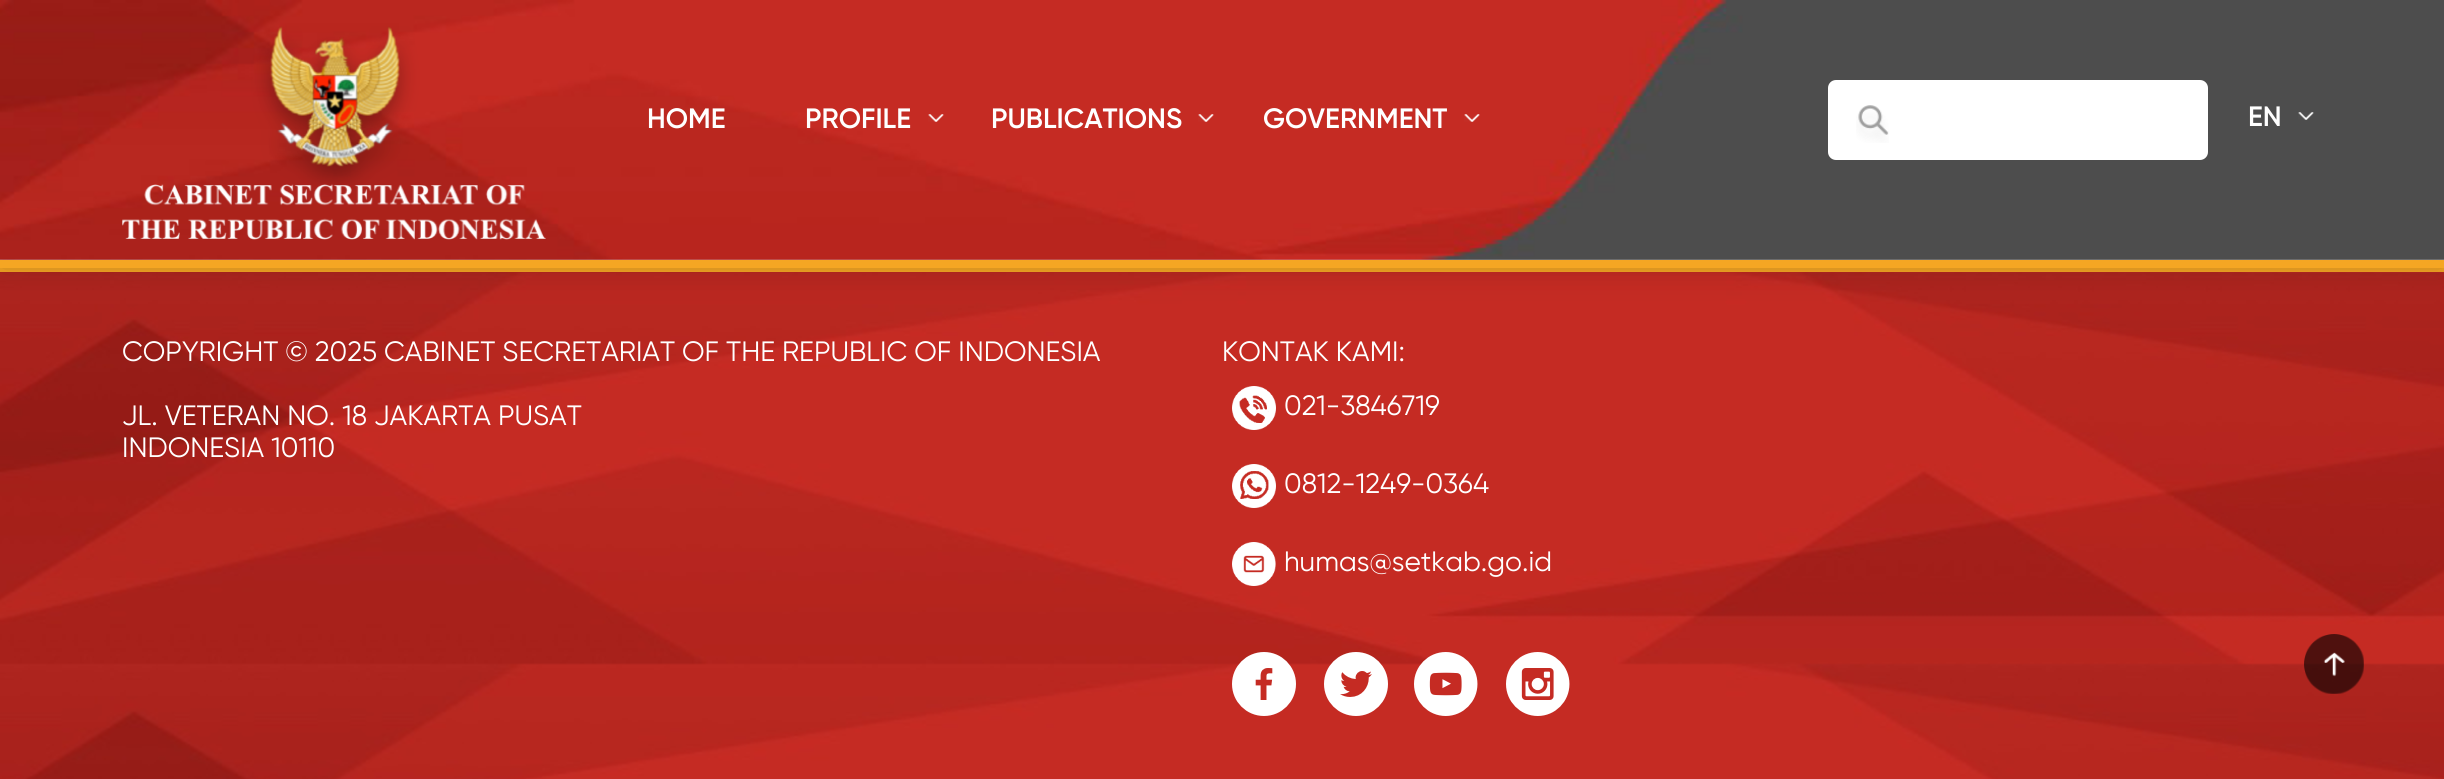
import math
import cairo


def use_color(cr, r, g, b):
  cr.set_source_rgb(r / 255, g / 255, b / 255)

def text(cr, x, y, s, family, size, color, bold=False, italic=False):
  cr.select_font_face(family, cairo.FONT_SLANT_ITALIC if italic else cairo.FONT_SLANT_NORMAL, cairo.FONT_WEIGHT_BOLD if bold else cairo.FONT_WEIGHT_NORMAL)
  cr.set_font_size(size)
  use_color(cr, *color)
  cr.move_to(x, y)
  cr.show_text(s)

def box(cr, x, y, w, h, *color):
  use_color(cr, *color)
  cr.rectangle(x, y, w, h)
  cr.fill()

def round_rect(cr, x, y, w, h, r):
  cr.new_sub_path()
  for i, (u, v) in enumerate([(x + w - r, y + h - r), (x + r, y + h - r), (x + r, y + r), (x + w - r, y + r)]):
    cr.arc(u, v, r, i * math.pi / 2, (i + 1) * math.pi / 2)
  cr.close_path()

def shadow(cr, x, y, w, h, r, blur, alpha):
  cr.push_group_with_content(cairo.CONTENT_ALPHA)
  cr.set_operator(cairo.OPERATOR_SOURCE)
  for i in range(15, -16, -2):
    e = blur * i / 6
    if min(w, h) + 2 * e > 0:
      cr.set_source_rgba(0, 0, 0, alpha * math.erfc((i - 1) / 8.5) / 2)
      round_rect(cr, x - e, y - e, w + 2 * e, h + 2 * e, max(0, min(r + e + blur * .6, min(w, h) / 2 + e)))
      cr.fill()
  cr.mask(cr.pop_group())

def picture(cr, path, x, y, w, h):
  cr.save()
  cr.set_source_surface(cairo.ImageSurface.create_from_png(path), x, y)
  cr.rectangle(x, y, w, h)
  cr.fill()
  cr.restore()

def draw(cr):
  use_color(cr, 255, 255, 255)
  cr.paint()
  use_color(cr, 0, 0, 0)
  shadow(cr, 0, 264, 2444, 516, 0, 15, 0.2)
  picture(cr, "img_06.png", 0, 272, 2444, 507)
  box(cr, 0, 268, 2444, 4, 245, 166, 35)
  use_color(cr, 0, 0, 0)
  shadow(cr, 0, 0, 2444, 268, 0, 15, 0.2)
  picture(cr, "img_01.png", 0, 0, 2444, 260)
  box(cr, 0, 260, 2444, 8, 245, 166, 35)
  picture(cr, "img_02.png", 122, 26, 424, 214)
  picture(cr, "img_03.png", 928, 114, 16, 8)
  picture(cr, "img_03.png", 1198, 114, 16, 8)
  picture(cr, "img_03.png", 1464, 114, 16, 8)
  use_color(cr, 255, 255, 255)
  round_rect(cr, 1828, 80, 380, 80, 8)
  cr.fill()
  picture(cr, "img_04.png", 1856, 105, 33, 38)
  picture(cr, "img_05.png", 2298, 112, 16, 8)
  picture(cr, "img_07.png", 1232, 386, 44, 44)
  picture(cr, "img_08.png", 1232, 464, 44, 44)
  picture(cr, "img_09.png", 1232, 542, 44, 44)
  picture(cr, "img_10.png", 1232, 652, 64, 64)
  picture(cr, "img_11.png", 1324, 652, 64, 64)
  picture(cr, "img_12.png", 1414, 652, 64, 64)
  picture(cr, "img_13.png", 1506, 652, 64, 64)
  picture(cr, "img_14.png", 2304, 634, 60, 60)
  text(cr, 647, 128, "HOME", "Gilroy SemiBold", 28, (255, 255, 255))
  text(cr, 805, 128, "PROFILE", "Gilroy SemiBold", 28, (255, 255, 255))
  text(cr, 991, 128, "PUBLICATIONS", "Gilroy SemiBold", 28, (255, 255, 255))
  text(cr, 1263, 128, "GOVERNMENT", "Gilroy SemiBold", 28, (255, 255, 255))
  text(cr, 2248, 126, "EN", "Gilroy SemiBold", 28, (255, 255, 255))
  text(cr, 122, 361, "COPYRIGHT © 2025 CABINET SECRETARIAT OF THE REPUBLIC OF INDONESIA", "Gilroy", 28, (255, 255, 255))
  text(cr, 122, 425, "JL. VETERAN NO. 18 JAKARTA PUSAT", "Gilroy", 28, (255, 255, 255))
  text(cr, 122, 457, "INDONESIA 10110", "Gilroy", 28, (255, 255, 255))
  text(cr, 1222, 361, "KONTAK KAMI:", "Gilroy", 28, (255, 255, 255))
  text(cr, 1284, 415, "021-3846719", "Gilroy", 28, (255, 255, 255))
  text(cr, 1284, 493, "0812-1249-0364", "Gilroy", 28, (255, 255, 255))
  text(cr, 1284, 571, "humas@setkab.go.id", "Gilroy", 28, (255, 255, 255))


surface = cairo.ImageSurface(cairo.FORMAT_RGB24, 2444, 779)
cr = cairo.Context(surface)
options = cairo.FontOptions()
options.set_hint_metrics(cairo.HINT_METRICS_OFF)
options.set_hint_style(cairo.HINT_STYLE_NONE)
cr.set_font_options(options)
cr.set_miter_limit(4)
draw(cr)
surface.write_to_png("out.png")
